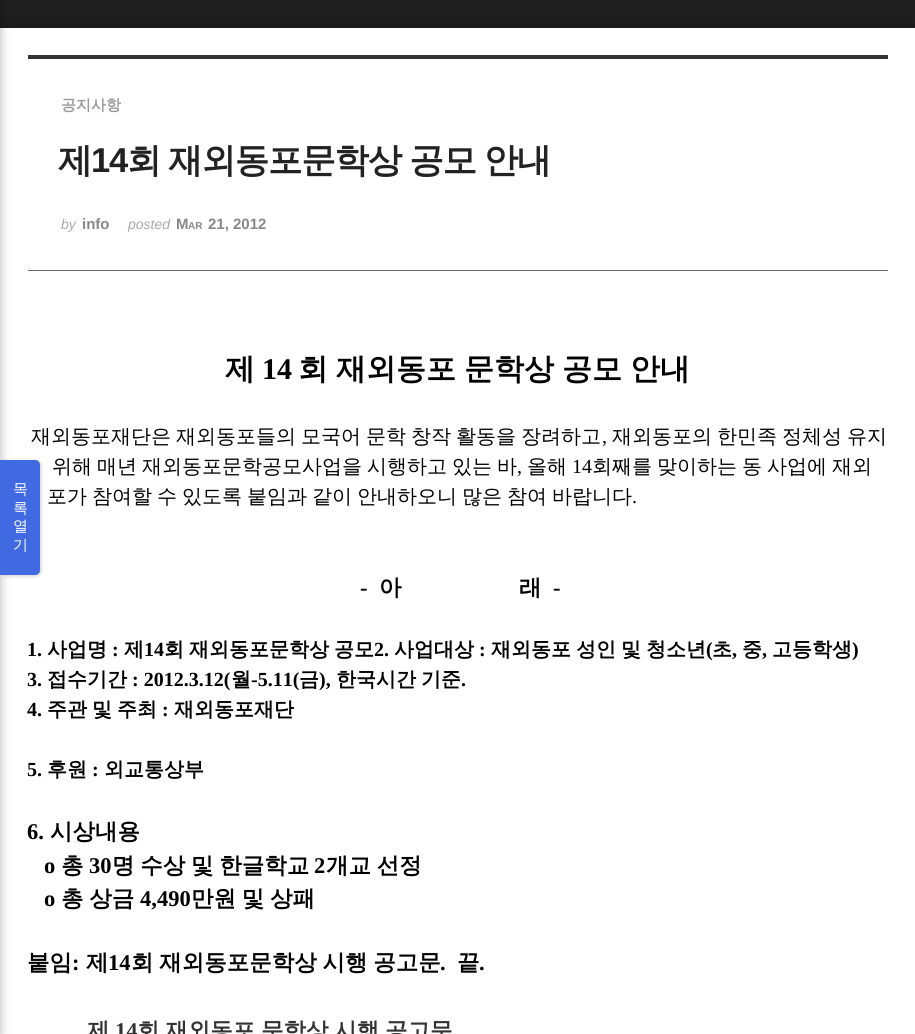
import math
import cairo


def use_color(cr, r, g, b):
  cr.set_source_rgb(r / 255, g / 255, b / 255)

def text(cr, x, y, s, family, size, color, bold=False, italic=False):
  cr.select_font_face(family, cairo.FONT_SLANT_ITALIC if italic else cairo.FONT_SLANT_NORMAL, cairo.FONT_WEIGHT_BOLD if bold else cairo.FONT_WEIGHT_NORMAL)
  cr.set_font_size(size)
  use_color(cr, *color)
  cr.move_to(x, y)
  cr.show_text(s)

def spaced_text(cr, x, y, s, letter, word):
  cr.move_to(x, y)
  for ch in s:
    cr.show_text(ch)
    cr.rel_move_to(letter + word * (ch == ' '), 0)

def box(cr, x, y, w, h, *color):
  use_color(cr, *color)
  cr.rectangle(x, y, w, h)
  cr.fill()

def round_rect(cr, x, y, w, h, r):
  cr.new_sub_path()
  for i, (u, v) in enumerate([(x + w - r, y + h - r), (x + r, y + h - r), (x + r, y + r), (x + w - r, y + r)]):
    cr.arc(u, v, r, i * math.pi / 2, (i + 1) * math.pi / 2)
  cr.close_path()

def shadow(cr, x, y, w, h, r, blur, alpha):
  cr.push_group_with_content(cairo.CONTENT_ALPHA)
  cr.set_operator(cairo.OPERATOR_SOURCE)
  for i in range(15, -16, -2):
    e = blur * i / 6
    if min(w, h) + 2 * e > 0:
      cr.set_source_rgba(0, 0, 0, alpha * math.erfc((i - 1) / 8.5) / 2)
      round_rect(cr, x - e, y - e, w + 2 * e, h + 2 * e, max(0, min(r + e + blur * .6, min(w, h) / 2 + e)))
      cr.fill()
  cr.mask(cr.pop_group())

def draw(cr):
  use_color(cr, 34, 34, 34)
  cr.paint()
  use_color(cr, 0, 0, 0)
  shadow(cr, 0, 33, 915, 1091, 0, 30, 0.5)
  box(cr, 0, 28, 915, 1006, 255, 255, 255)
  use_color(cr, 0, 0, 0)
  shadow(cr, -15, 0, 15, 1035, 0, 5, 0.3)
  shadow(cr, 1, 461, 40, 115, 5, 2, 0.2)
  use_color(cr, 65, 105, 225)
  cr.new_path()
  cr.move_to(0, 460)
  cr.line_to(35, 460)
  cr.curve_to(38, 460, 40, 462, 40, 465)
  cr.line_to(40, 570)
  cr.curve_to(40, 573, 38, 575, 35, 575)
  cr.line_to(0, 575)
  cr.close_path()
  cr.fill()
  box(cr, 28, 55, 860, 4, 51, 51, 51)
  box(cr, 28, 270, 860, 1, 102, 102, 102)
  text(cr, 13, 494, "목", "WenQuanYi Zen Hei Medium", 15, (255, 255, 255))
  text(cr, 13, 513, "록", "WenQuanYi Zen Hei Medium", 15, (255, 255, 255))
  text(cr, 13, 531, "열", "WenQuanYi Zen Hei Medium", 15, (255, 255, 255))
  text(cr, 13, 550, "기", "WenQuanYi Zen Hei Medium", 15, (255, 255, 255))
  text(cr, 61, 110, "공지사항", "WenQuanYi Zen Hei", 15, (153, 153, 153), bold=True)
  cr.set_font_size(34.5)
  use_color(cr, 34, 34, 34)
  spaced_text(cr, 58, 172, "제", -1.25, 0)
  cr.select_font_face("Liberation Sans", cairo.FONT_SLANT_NORMAL, cairo.FONT_WEIGHT_BOLD)
  spaced_text(cr, 91, 172, "14", -1.25, 0)
  cr.select_font_face("WenQuanYi Zen Hei", cairo.FONT_SLANT_NORMAL, cairo.FONT_WEIGHT_BOLD)
  spaced_text(cr, 127, 172, "회 재외동포문학상 공모 안내", -1.25, -1)
  text(cr, 61, 229, "by", "Liberation Sans", 14, (170, 170, 170), italic=True)
  text(cr, 82, 229, "info", "Liberation Sans", 15, (136, 136, 136), bold=True)
  text(cr, 128, 229, "posted", "Liberation Sans", 14, (170, 170, 170), italic=True)
  text(cr, 176, 229, "M", "Liberation Sans", 15, (136, 136, 136), bold=True)
  text(cr, 188, 229, "AR", "Liberation Sans", 10, (136, 136, 136), bold=True)
  text(cr, 208, 229, "21, 2012", "Liberation Sans", 15, (136, 136, 136), bold=True)
  text(cr, 225, 379, "제", "WenQuanYi Zen Hei", 30, (0, 0, 0), bold=True)
  text(cr, 262, 379, "14", "Liberation Serif", 30, (0, 0, 0), bold=True)
  cr.select_font_face("WenQuanYi Zen Hei", cairo.FONT_SLANT_NORMAL, cairo.FONT_WEIGHT_BOLD)
  spaced_text(cr, 298, 379, "회 재외동포 문학상 공모 안내", 0, -1)
  cr.select_font_face("WenQuanYi Zen Hei Medium")
  cr.set_font_size(20)
  spaced_text(cr, 31, 443, "재외동포재단은 재외동포들의 모국어 문학 창작 활동을 장려하고", 0, -1)
  text(cr, 602, 443, ",", "Liberation Serif", 20, (0, 0, 0))
  cr.select_font_face("WenQuanYi Zen Hei Medium")
  spaced_text(cr, 612, 443, "재외동포의 한민족 정체성 유지", 0, -1)
  spaced_text(cr, 52, 473, "위해 매년", 0, -1)
  spaced_text(cr, 142, 473, "재외동포문학공모사업을 시행하고 있는 바", 0, -1)
  text(cr, 517, 473, ",", "Liberation Serif", 20, (0, 0, 0))
  text(cr, 527, 473, "올해", "WenQuanYi Zen Hei Medium", 20, (0, 0, 0))
  text(cr, 572, 473, "14", "Liberation Serif", 20, (0, 0, 0))
  cr.select_font_face("WenQuanYi Zen Hei Medium")
  spaced_text(cr, 592, 473, "회째를 맞이하는 동 사업에 재외", 0, -1)
  spaced_text(cr, 47, 503, "포가 참여할 수 있도록", 0, -1)
  spaced_text(cr, 247, 503, "붙임과 같이 안내하오니 많은 참여 바랍니다", 0, -1)
  text(cr, 632, 503, ".", "Liberation Serif", 20, (0, 0, 0))
  text(cr, 360, 595, "-", "Liberation Serif", 22.5, (0, 0, 0), bold=True)
  text(cr, 379, 595, "아", "WenQuanYi Zen Hei", 22.5, (0, 0, 0), bold=True)
  text(cr, 519, 595, "래", "WenQuanYi Zen Hei", 22.5, (0, 0, 0), bold=True)
  text(cr, 553, 595, "-", "Liberation Serif", 22.5, (0, 0, 0), bold=True)
  text(cr, 27, 656, "1.", "Liberation Serif", 20, (0, 0, 0), bold=True)
  text(cr, 47, 656, "사업명", "WenQuanYi Zen Hei", 20, (0, 0, 0), bold=True)
  text(cr, 112, 656, ":", "Liberation Serif", 20, (0, 0, 0), bold=True)
  text(cr, 124, 656, "제", "WenQuanYi Zen Hei", 20, (0, 0, 0), bold=True)
  text(cr, 144, 656, "14", "Liberation Serif", 20, (0, 0, 0), bold=True)
  cr.select_font_face("WenQuanYi Zen Hei", cairo.FONT_SLANT_NORMAL, cairo.FONT_WEIGHT_BOLD)
  spaced_text(cr, 164, 656, "회 재외동포문학상 공모", 0, -1)
  text(cr, 374, 656, "2.", "Liberation Serif", 20, (0, 0, 0), bold=True)
  text(cr, 394, 656, "사업대상", "WenQuanYi Zen Hei", 20, (0, 0, 0), bold=True)
  text(cr, 479, 656, ":", "Liberation Serif", 20, (0, 0, 0), bold=True)
  cr.select_font_face("WenQuanYi Zen Hei", cairo.FONT_SLANT_NORMAL, cairo.FONT_WEIGHT_BOLD)
  spaced_text(cr, 491, 656, "재외동포 성인 및 청소년", 0, -1)
  text(cr, 706, 656, "(", "Liberation Serif", 20, (0, 0, 0), bold=True)
  text(cr, 712, 656, "초", "WenQuanYi Zen Hei", 20, (0, 0, 0), bold=True)
  text(cr, 732, 656, ",", "Liberation Serif", 20, (0, 0, 0), bold=True)
  text(cr, 742, 656, "중", "WenQuanYi Zen Hei", 20, (0, 0, 0), bold=True)
  text(cr, 762, 656, ",", "Liberation Serif", 20, (0, 0, 0), bold=True)
  text(cr, 772, 656, "고등학생", "WenQuanYi Zen Hei", 20, (0, 0, 0), bold=True)
  text(cr, 852, 656, ")", "Liberation Serif", 20, (0, 0, 0), bold=True)
  text(cr, 27, 686, "3.", "Liberation Serif", 20, (0, 0, 0), bold=True)
  text(cr, 47, 686, "접수기간", "WenQuanYi Zen Hei", 20, (0, 0, 0), bold=True)
  text(cr, 132, 686, ": 2012.3.12(", "Liberation Serif", 20, (0, 0, 0), bold=True)
  text(cr, 231, 686, "월", "WenQuanYi Zen Hei", 20, (0, 0, 0), bold=True)
  text(cr, 251, 686, "-5.11(", "Liberation Serif", 20, (0, 0, 0), bold=True)
  text(cr, 299, 686, "금", "WenQuanYi Zen Hei", 20, (0, 0, 0), bold=True)
  text(cr, 319, 686, "),", "Liberation Serif", 20, (0, 0, 0), bold=True)
  cr.select_font_face("WenQuanYi Zen Hei", cairo.FONT_SLANT_NORMAL, cairo.FONT_WEIGHT_BOLD)
  spaced_text(cr, 336, 686, "한국시간 기준", 0, -1)
  text(cr, 461, 686, ".", "Liberation Serif", 20, (0, 0, 0), bold=True)
  text(cr, 27, 716, "4.", "Liberation Serif", 20, (0, 0, 0), bold=True)
  cr.select_font_face("WenQuanYi Zen Hei", cairo.FONT_SLANT_NORMAL, cairo.FONT_WEIGHT_BOLD)
  spaced_text(cr, 47, 716, "주관 및 주최", 0, -1)
  text(cr, 162, 716, ":", "Liberation Serif", 20, (0, 0, 0), bold=True)
  text(cr, 174, 716, "재외동포재단", "WenQuanYi Zen Hei", 20, (0, 0, 0), bold=True)
  text(cr, 27, 776, "5.", "Liberation Serif", 20, (0, 0, 0), bold=True)
  text(cr, 47, 776, "후원", "WenQuanYi Zen Hei", 20, (0, 0, 0), bold=True)
  text(cr, 92, 776, ":", "Liberation Serif", 20, (0, 0, 0), bold=True)
  text(cr, 104, 776, "외교통상부", "WenQuanYi Zen Hei", 20, (0, 0, 0), bold=True)
  text(cr, 27, 839, "6.", "Liberation Serif", 22.5, (0, 0, 0), bold=True)
  text(cr, 50, 839, "시상내용", "WenQuanYi Zen Hei", 22.5, (0, 0, 0), bold=True)
  text(cr, 44, 873, "o", "Liberation Serif", 22.5, (0, 0, 0), bold=True)
  text(cr, 61, 873, "총", "WenQuanYi Zen Hei", 22.5, (0, 0, 0), bold=True)
  text(cr, 89, 873, "30", "Liberation Serif", 22.5, (0, 0, 0), bold=True)
  cr.select_font_face("WenQuanYi Zen Hei", cairo.FONT_SLANT_NORMAL, cairo.FONT_WEIGHT_BOLD)
  spaced_text(cr, 112, 873, "명 수상 및 한글학교", 0, -1)
  text(cr, 314, 873, "2", "Liberation Serif", 22.5, (0, 0, 0), bold=True)
  cr.select_font_face("WenQuanYi Zen Hei", cairo.FONT_SLANT_NORMAL, cairo.FONT_WEIGHT_BOLD)
  spaced_text(cr, 326, 873, "개교 선정", 0, -1)
  text(cr, 44, 906, "o", "Liberation Serif", 22.5, (0, 0, 0), bold=True)
  cr.select_font_face("WenQuanYi Zen Hei", cairo.FONT_SLANT_NORMAL, cairo.FONT_WEIGHT_BOLD)
  spaced_text(cr, 61, 906, "총 상금", 0, -1)
  text(cr, 140, 906, "4,490", "Liberation Serif", 22.5, (0, 0, 0), bold=True)
  cr.select_font_face("WenQuanYi Zen Hei", cairo.FONT_SLANT_NORMAL, cairo.FONT_WEIGHT_BOLD)
  spaced_text(cr, 191, 906, "만원 및 상패", 0, -1)
  text(cr, 27, 970, "붙임", "WenQuanYi Zen Hei", 22.5, (0, 0, 0), bold=True)
  text(cr, 72, 970, ":", "Liberation Serif", 22.5, (0, 0, 0), bold=True)
  text(cr, 86, 970, "제", "WenQuanYi Zen Hei", 22.5, (0, 0, 0), bold=True)
  text(cr, 108, 970, "14", "Liberation Serif", 22.5, (0, 0, 0), bold=True)
  cr.select_font_face("WenQuanYi Zen Hei", cairo.FONT_SLANT_NORMAL, cairo.FONT_WEIGHT_BOLD)
  spaced_text(cr, 131, 970, "회 재외동포문학상 시행 공고문", 0, -1)
  text(cr, 440, 970, ".", "Liberation Serif", 22.5, (0, 0, 0), bold=True)
  text(cr, 457, 970, "끝", "WenQuanYi Zen Hei", 22.5, (0, 0, 0), bold=True)
  text(cr, 479, 970, ".", "Liberation Serif", 22.5, (0, 0, 0), bold=True)
  text(cr, 87, 1038, "제", "WenQuanYi Zen Hei", 22.5, (51, 51, 51), bold=True)
  text(cr, 115, 1038, "14", "Liberation Serif", 22.5, (51, 51, 51), bold=True)
  cr.select_font_face("WenQuanYi Zen Hei", cairo.FONT_SLANT_NORMAL, cairo.FONT_WEIGHT_BOLD)
  spaced_text(cr, 137, 1038, "회 재외동포 문학상 시행 공고문", 0, -1)


surface = cairo.ImageSurface(cairo.FORMAT_RGB24, 915, 1034)
cr = cairo.Context(surface)
options = cairo.FontOptions()
options.set_hint_metrics(cairo.HINT_METRICS_OFF)
options.set_hint_style(cairo.HINT_STYLE_NONE)
cr.set_font_options(options)
cr.set_miter_limit(4)
draw(cr)
surface.write_to_png("out.png")
